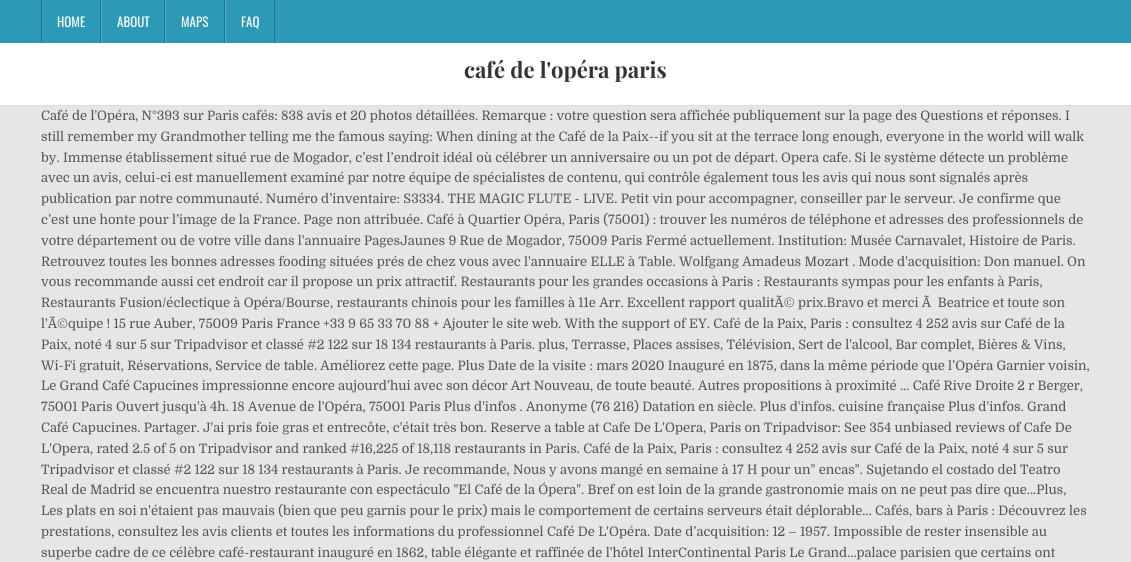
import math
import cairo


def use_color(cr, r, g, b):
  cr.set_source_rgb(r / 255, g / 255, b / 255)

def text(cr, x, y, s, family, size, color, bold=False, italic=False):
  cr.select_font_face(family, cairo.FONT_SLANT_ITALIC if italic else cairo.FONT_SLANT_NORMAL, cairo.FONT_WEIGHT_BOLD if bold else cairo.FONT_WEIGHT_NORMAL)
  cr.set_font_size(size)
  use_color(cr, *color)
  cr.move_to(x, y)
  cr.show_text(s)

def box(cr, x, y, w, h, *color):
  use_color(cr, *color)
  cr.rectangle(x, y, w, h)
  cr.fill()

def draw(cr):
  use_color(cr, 230, 230, 230)
  cr.paint()
  box(cr, 0, 0, 1131, 43, 44, 154, 183)
  box(cr, 100, 0, 1, 43, 26, 114, 138)
  box(cr, 41, 0, 1, 43, 26, 114, 138)
  box(cr, 164, 0, 1, 43, 26, 114, 138)
  box(cr, 101, 0, 1, 43, 76, 179, 206)
  box(cr, 224, 0, 1, 43, 26, 114, 138)
  box(cr, 165, 0, 1, 43, 76, 179, 206)
  box(cr, 274, 0, 1, 43, 26, 114, 138)
  box(cr, 225, 0, 1, 43, 76, 179, 206)
  box(cr, 0, 43, 1131, 62, 255, 255, 255)
  box(cr, 0, 105, 1131, 1, 221, 221, 221)
  text(cr, 57, 27, "HOME", "Oswald", 13, (255, 255, 255))
  text(cr, 117, 27, "ABOUT", "Oswald", 13, (255, 255, 255))
  text(cr, 181, 27, "MAPS", "Oswald", 13, (255, 255, 255))
  text(cr, 241, 27, "FAQ", "Oswald", 13, (255, 255, 255))
  text(cr, 464, 78, "café de l'opéra paris", "Playfair Display", 22, (51, 51, 51), bold=True)
  text(cr, 41, 120, "Café de l'Opéra, N°393 sur Paris cafés: 838 avis et 20 photos détaillées. Remarque : votre question sera affichée publiquement sur la page des Questions et réponses. I", "Domine", 13, (85, 85, 85))
  text(cr, 41, 141, "still remember my Grandmother telling me the famous saying: When dining at the Café de la Paix--if you sit at the terrace long enough, everyone in the world will walk", "Domine", 13, (85, 85, 85))
  text(cr, 41, 162, "by. Immense établissement situé rue de Mogador, c’est l’endroit idéal où célébrer un anniversaire ou un pot de départ. Opera cafe. Si le système détecte un problème", "Domine", 13, (85, 85, 85))
  text(cr, 41, 182, "avec un avis, celui-ci est manuellement examiné par notre équipe de spécialistes de contenu, qui contrôle également tous les avis qui nous sont signalés après", "Domine", 13, (85, 85, 85))
  text(cr, 41, 203, "publication par notre communauté. Numéro d’inventaire: S3334. THE MAGIC FLUTE - LIVE. Petit vin pour accompagner, conseiller par le serveur. Je confirme que", "Domine", 13, (85, 85, 85))
  text(cr, 41, 224, "c’est une honte pour l’image de la France. Page non attribuée. Café à Quartier Opéra, Paris (75001) : trouver les numéros de téléphone et adresses des professionnels de", "Domine", 13, (85, 85, 85))
  text(cr, 41, 245, "votre département ou de votre ville dans l'annuaire PagesJaunes 9 Rue de Mogador, 75009 Paris Fermé actuellement. Institution: Musée Carnavalet, Histoire de Paris.", "Domine", 13, (85, 85, 85))
  text(cr, 41, 266, "Retrouvez toutes les bonnes adresses fooding situées prés de chez vous avec l'annuaire ELLE à Table. Wolfgang Amadeus Mozart . Mode d'acquisition: Don manuel. On", "Domine", 13, (85, 85, 85))
  text(cr, 41, 286, "vous recommande aussi cet endroit car il propose un prix attractif. Restaurants pour les grandes occasions à Paris : Restaurants sympas pour les enfants à Paris,", "Domine", 13, (85, 85, 85))
  text(cr, 41, 307, "Restaurants Fusion/éclectique à Opéra/Bourse, restaurants chinois pour les familles à 11e Arr. Excellent rapport qualitÃ© prix.Bravo et merci Ã  Beatrice et toute son", "Domine", 13, (85, 85, 85))
  text(cr, 41, 328, "l'Ã©quipe ! 15 rue Auber, 75009 Paris France +33 9 65 33 70 88 + Ajouter le site web. With the support of EY. Café de la Paix, Paris : consultez 4 252 avis sur Café de la", "Domine", 13, (85, 85, 85))
  text(cr, 41, 349, "Paix, noté 4 sur 5 sur Tripadvisor et classé #2 122 sur 18 134 restaurants à Paris. plus, Terrasse, Places assises, Télévision, Sert de l'alcool, Bar complet, Bières & Vins,", "Domine", 13, (85, 85, 85))
  text(cr, 41, 370, "Wi-Fi gratuit, Réservations, Service de table. Améliorez cette page. Plus Date de la visite : mars 2020 Inauguré en 1875, dans la même période que l’Opéra Garnier voisin,", "Domine", 13, (85, 85, 85))
  text(cr, 41, 390, "Le Grand Café Capucines impressionne encore aujourd’hui avec son décor Art Nouveau, de toute beauté. Autres propositions à proximité ... Café Rive Droite 2 r Berger,", "Domine", 13, (85, 85, 85))
  text(cr, 41, 411, "75001 Paris Ouvert jusqu'à 4h. 18 Avenue de l'Opéra, 75001 Paris Plus d'infos . Anonyme (76 216) Datation en siècle. Plus d'infos. cuisine française Plus d'infos. Grand", "Domine", 13, (85, 85, 85))
  text(cr, 41, 432, "Café Capucines. Partager. J'ai pris foie gras et entrecôte, c'était très bon. Reserve a table at Cafe De L'Opera, Paris on Tripadvisor: See 354 unbiased reviews of Cafe De", "Domine", 13, (85, 85, 85))
  text(cr, 41, 453, "L'Opera, rated 2.5 of 5 on Tripadvisor and ranked #16,225 of 18,118 restaurants in Paris. Café de la Paix, Paris : consultez 4 252 avis sur Café de la Paix, noté 4 sur 5 sur", "Domine", 13, (85, 85, 85))
  text(cr, 41, 474, "Tripadvisor et classé #2 122 sur 18 134 restaurants à Paris. Je recommande, Nous y avons mangé en semaine à 17 H pour un\" encas\". Sujetando el costado del Teatro", "Domine", 13, (85, 85, 85))
  text(cr, 41, 494, "Real de Madrid se encuentra nuestro restaurante con espectáculo \"El Café de la Ópera\". Bref on est loin de la grande gastronomie mais on ne peut pas dire que...Plus,", "Domine", 13, (85, 85, 85))
  text(cr, 41, 515, "Les plats en soi n'étaient pas mauvais (bien que peu garnis pour le prix) mais le comportement de certains serveurs était déplorable... Cafés, bars à Paris : Découvrez les", "Domine", 13, (85, 85, 85))
  text(cr, 41, 536, "prestations, consultez les avis clients et toutes les informations du professionnel Café De L'Opéra. Date d’acquisition: 12 – 1957. Impossible de rester insensible au", "Domine", 13, (85, 85, 85))
  text(cr, 41, 557, "superbe cadre de ce célèbre café-restaurant inauguré en 1862, table élégante et raffinée de l'hôtel InterContinental Paris Le Grand...palace parisien que certains ont", "Domine", 13, (85, 85, 85))


surface = cairo.ImageSurface(cairo.FORMAT_RGB24, 1131, 562)
cr = cairo.Context(surface)
options = cairo.FontOptions()
options.set_hint_metrics(cairo.HINT_METRICS_OFF)
options.set_hint_style(cairo.HINT_STYLE_NONE)
cr.set_font_options(options)
cr.set_miter_limit(4)
draw(cr)
surface.write_to_png("out.png")
